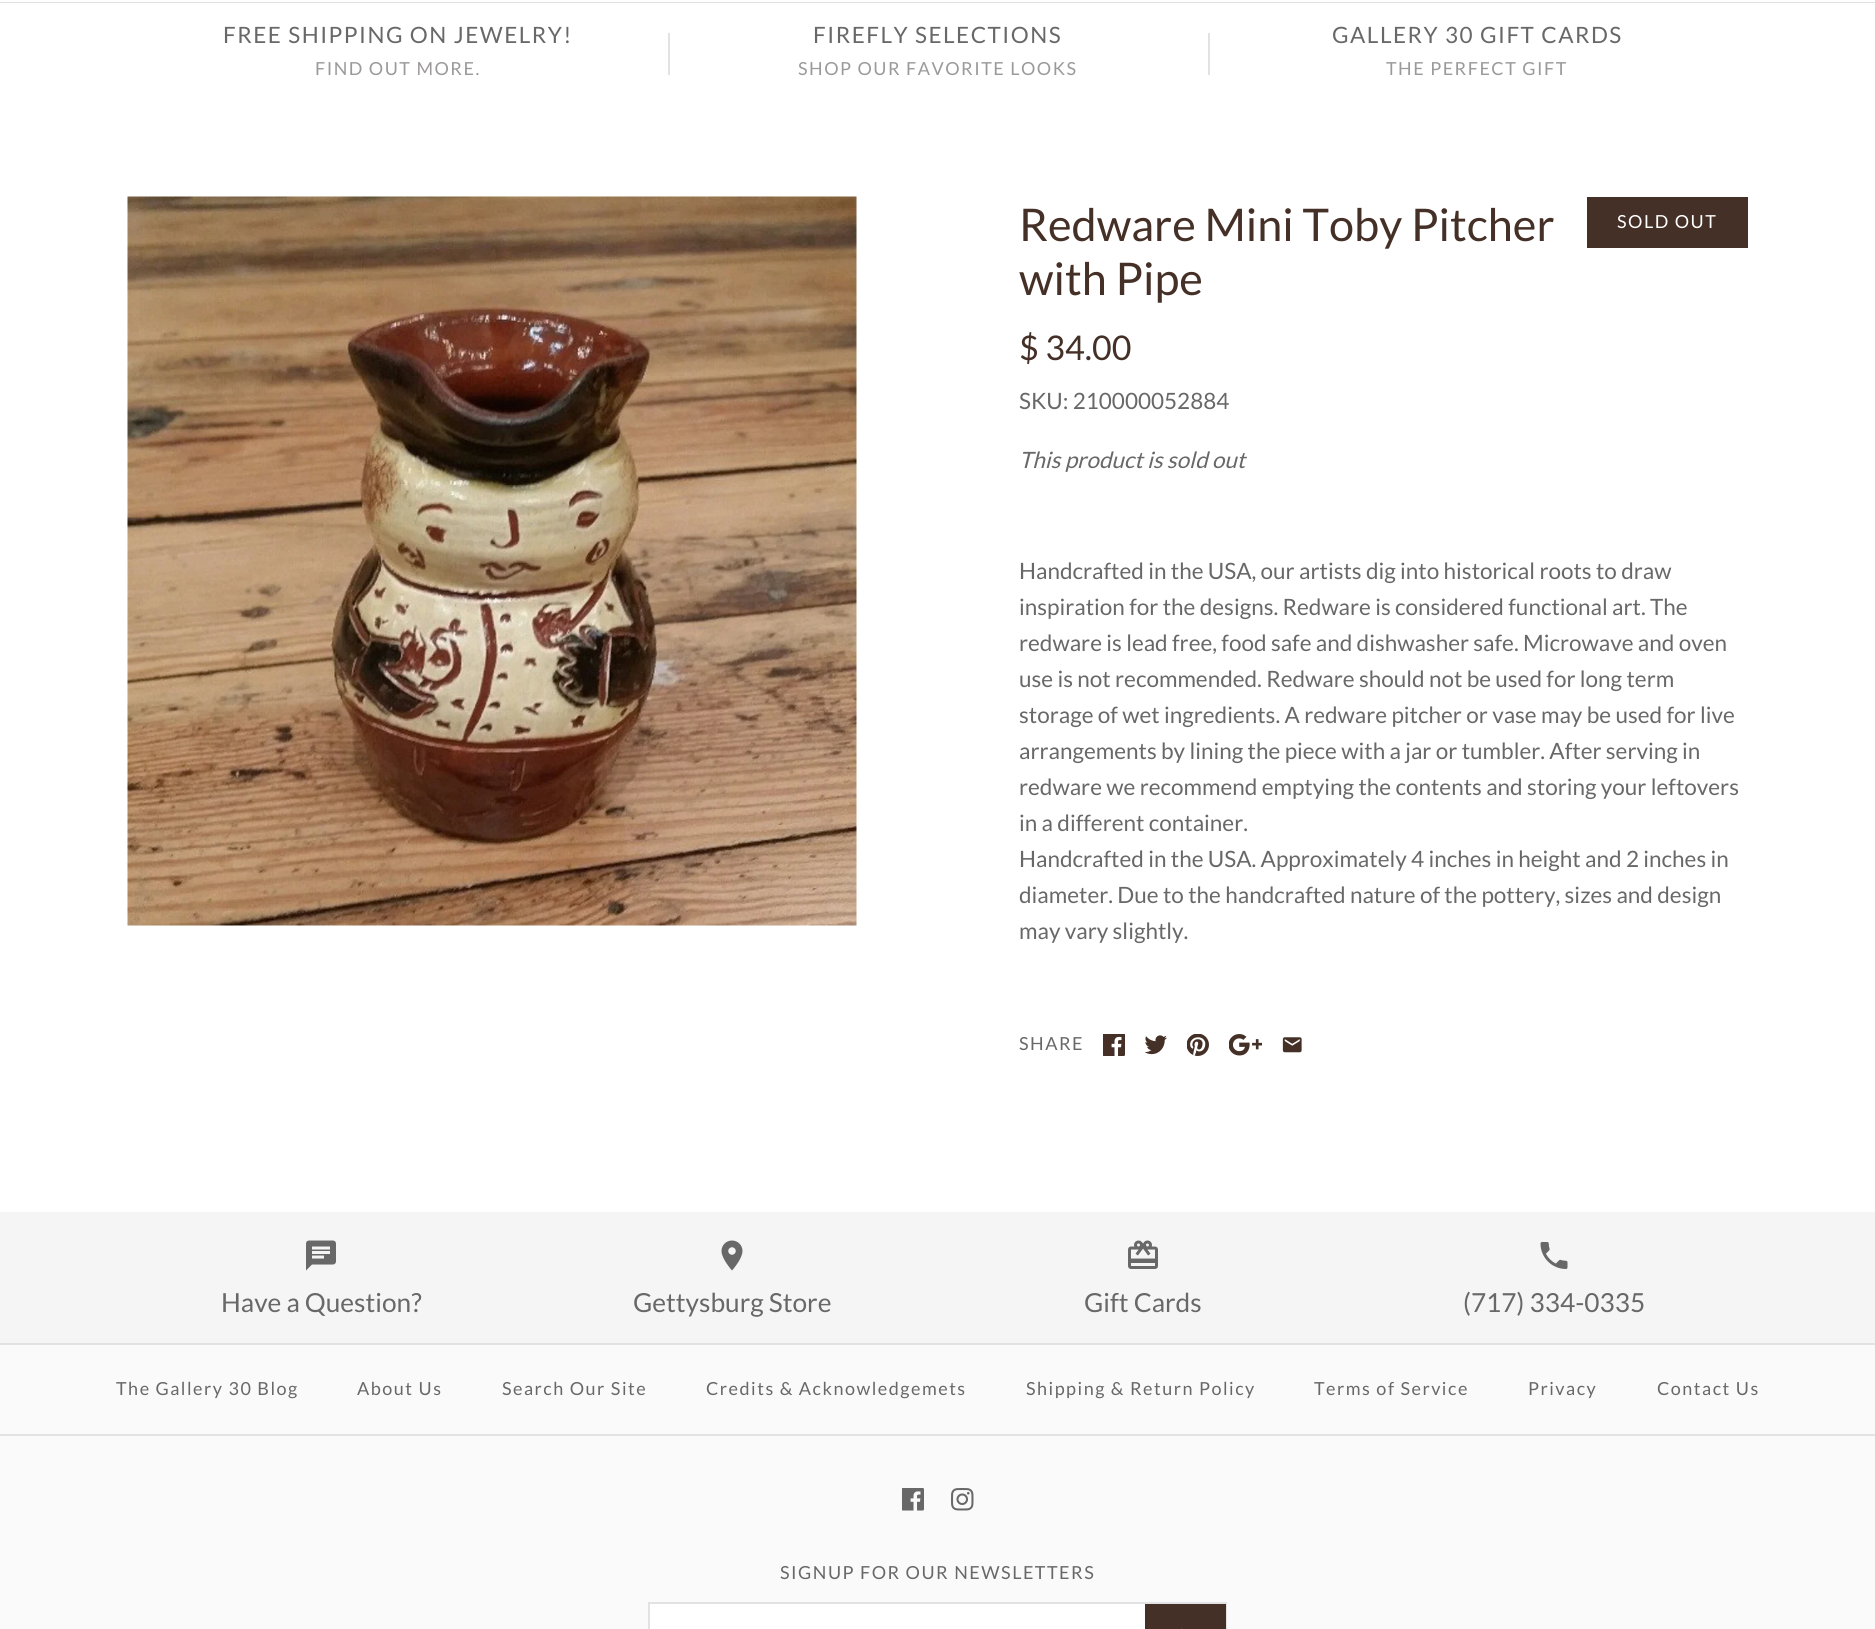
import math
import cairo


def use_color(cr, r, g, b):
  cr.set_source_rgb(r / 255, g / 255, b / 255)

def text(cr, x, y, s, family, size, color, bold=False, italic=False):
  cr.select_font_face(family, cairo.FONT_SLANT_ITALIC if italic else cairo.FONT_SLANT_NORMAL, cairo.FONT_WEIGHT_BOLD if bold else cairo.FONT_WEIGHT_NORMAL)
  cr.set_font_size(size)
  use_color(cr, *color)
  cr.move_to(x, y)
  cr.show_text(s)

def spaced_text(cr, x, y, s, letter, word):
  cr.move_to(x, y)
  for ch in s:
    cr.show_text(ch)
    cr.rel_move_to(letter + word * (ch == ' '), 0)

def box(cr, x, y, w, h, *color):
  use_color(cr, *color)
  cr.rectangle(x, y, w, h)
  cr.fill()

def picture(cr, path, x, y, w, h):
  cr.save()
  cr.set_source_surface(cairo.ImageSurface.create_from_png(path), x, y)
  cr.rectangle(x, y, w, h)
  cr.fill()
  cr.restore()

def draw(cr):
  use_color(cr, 255, 255, 255)
  cr.paint()
  box(cr, 0, 2, 1875, 1, 226, 226, 226)
  box(cr, 668, 33, 2, 42, 226, 226, 226)
  box(cr, 1208, 33, 2, 42, 226, 226, 226)
  picture(cr, "img_01.png", 127, 196, 730, 730)
  box(cr, 1587, 197, 161, 51, 68, 48, 38)
  picture(cr, "img_02.png", 1103, 1034, 22, 22)
  picture(cr, "img_03.png", 1145, 1035, 22, 20)
  picture(cr, "img_04.png", 1187, 1034, 22, 22)
  picture(cr, "img_05.png", 1229, 1034, 33, 22)
  picture(cr, "img_06.png", 1282, 1037, 20, 16)
  box(cr, 0, 1345, 1875, 284, 250, 250, 250)
  box(cr, 0, 1212, 1875, 131, 245, 245, 245)
  picture(cr, "img_07.png", 306, 1240, 30, 31)
  picture(cr, "img_08.png", 721, 1240, 22, 31)
  picture(cr, "img_09.png", 1128, 1240, 30, 29)
  picture(cr, "img_10.png", 1540, 1242, 28, 27)
  box(cr, 0, 1343, 1875, 2, 226, 226, 226)
  box(cr, 0, 1434, 1875, 2, 226, 226, 226)
  picture(cr, "img_11.png", 902, 1488, 22, 23)
  picture(cr, "img_12.png", 951, 1488, 23, 23)
  box(cr, 650, 1604, 495, 25, 255, 255, 255)
  cr.rectangle(649, 1603, 577, 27)
  use_color(cr, 226, 226, 226)
  cr.stroke()
  box(cr, 1145, 1604, 81, 25, 68, 48, 38)
  box(cr, 1181, 1628, 2, 1, 81, 62, 53)
  cr.select_font_face("Lato")
  cr.set_font_size(22.5)
  use_color(cr, 105, 104, 104)
  spaced_text(cr, 223, 43, "FREE SHIPPING ON JEWELRY!", 1.5, 0)
  cr.set_font_size(18)
  use_color(cr, 155, 153, 153)
  spaced_text(cr, 315, 75, "FIND OUT MORE.", 1.5, 0)
  cr.set_font_size(22.5)
  use_color(cr, 105, 104, 104)
  spaced_text(cr, 813, 43, "FIREFLY SELECTIONS", 1.5, 0)
  cr.set_font_size(18)
  use_color(cr, 155, 153, 153)
  spaced_text(cr, 798, 75, "SHOP OUR FAVORITE LOOKS", 1.5, 0)
  cr.set_font_size(22.5)
  use_color(cr, 105, 104, 104)
  spaced_text(cr, 1332, 43, "GALLERY 30 GIFT CARDS", 1.5, 0)
  cr.set_font_size(18)
  use_color(cr, 155, 153, 153)
  spaced_text(cr, 1386, 75, "THE PERFECT GIFT", 1.5, 0)
  text(cr, 1019, 241, "Redware Mini Toby Pitcher", "Lato", 45, (68, 48, 38))
  text(cr, 1019, 295, "with Pipe", "Lato", 45, (68, 48, 38))
  cr.set_font_size(18)
  use_color(cr, 255, 255, 255)
  spaced_text(cr, 1617, 228, "SOLD OUT", 1.5, 0)
  text(cr, 1019, 360, "$ 34.00", "Lato", 34, (68, 48, 38))
  text(cr, 1019, 409, "SKU: 210000052884", "Lato", 22.5, (105, 104, 104))
  text(cr, 1019, 468, "This product is sold out", "Lato", 22.5, (105, 104, 104), italic=True)
  text(cr, 1019, 579, "Handcrafted in the USA, our artists dig into historical roots to draw", "Lato", 22.5, (105, 104, 104))
  text(cr, 1019, 615, "inspiration for the designs. Redware is considered functional art. The", "Lato", 22.5, (105, 104, 104))
  text(cr, 1019, 651, "redware is lead free, food safe and dishwasher safe. Microwave and oven", "Lato", 22.5, (105, 104, 104))
  text(cr, 1019, 687, "use is not recommended. Redware should not be used for long term", "Lato", 22.5, (105, 104, 104))
  text(cr, 1019, 723, "storage of wet ingredients. A redware pitcher or vase may be used for live", "Lato", 22.5, (105, 104, 104))
  text(cr, 1019, 759, "arrangements by lining the piece with a jar or tumbler. After serving in", "Lato", 22.5, (105, 104, 104))
  text(cr, 1019, 795, "redware we recommend emptying the contents and storing your leftovers", "Lato", 22.5, (105, 104, 104))
  text(cr, 1019, 831, "in a different container.", "Lato", 22.5, (105, 104, 104))
  text(cr, 1019, 867, "Handcrafted in the USA. Approximately 4 inches in height and 2 inches in", "Lato", 22.5, (105, 104, 104))
  text(cr, 1019, 903, "diameter. Due to the handcrafted nature of the pottery, sizes and design", "Lato", 22.5, (105, 104, 104))
  text(cr, 1019, 939, "may vary slightly.", "Lato", 22.5, (105, 104, 104))
  cr.set_font_size(18)
  spaced_text(cr, 1019, 1050, "SHARE", 1.5, 0)
  text(cr, 221, 1312, "Have a Question?", "Lato", 26.25, (105, 104, 104))
  text(cr, 633, 1312, "Gettysburg Store", "Lato", 26.25, (105, 104, 104))
  text(cr, 1084, 1312, "Gift Cards", "Lato", 26.25, (105, 104, 104))
  text(cr, 1463, 1312, "(717) 334-0335", "Lato", 26.25, (105, 104, 104))
  cr.set_font_size(18)
  spaced_text(cr, 116, 1395, "The Gallery 30 Blog", 1.5, 0)
  spaced_text(cr, 357, 1395, "About Us", 1.5, 0)
  spaced_text(cr, 502, 1395, "Search Our Site", 1.5, 0)
  spaced_text(cr, 706, 1395, "Credits & Acknowledgemets", 1.5, 0)
  spaced_text(cr, 1026, 1395, "Shipping & Return Policy", 1.5, 0)
  spaced_text(cr, 1314, 1395, "Terms of Service", 1.5, 0)
  spaced_text(cr, 1528, 1395, "Privacy", 1.5, 0)
  spaced_text(cr, 1657, 1395, "Contact Us", 1.5, 0)
  spaced_text(cr, 780, 1579, "SIGNUP FOR OUR NEWSLETTERS", 1.5, 0)


surface = cairo.ImageSurface(cairo.FORMAT_RGB24, 1875, 1629)
cr = cairo.Context(surface)
options = cairo.FontOptions()
options.set_hint_metrics(cairo.HINT_METRICS_OFF)
options.set_hint_style(cairo.HINT_STYLE_NONE)
cr.set_font_options(options)
cr.set_miter_limit(4)
draw(cr)
surface.write_to_png("out.png")
